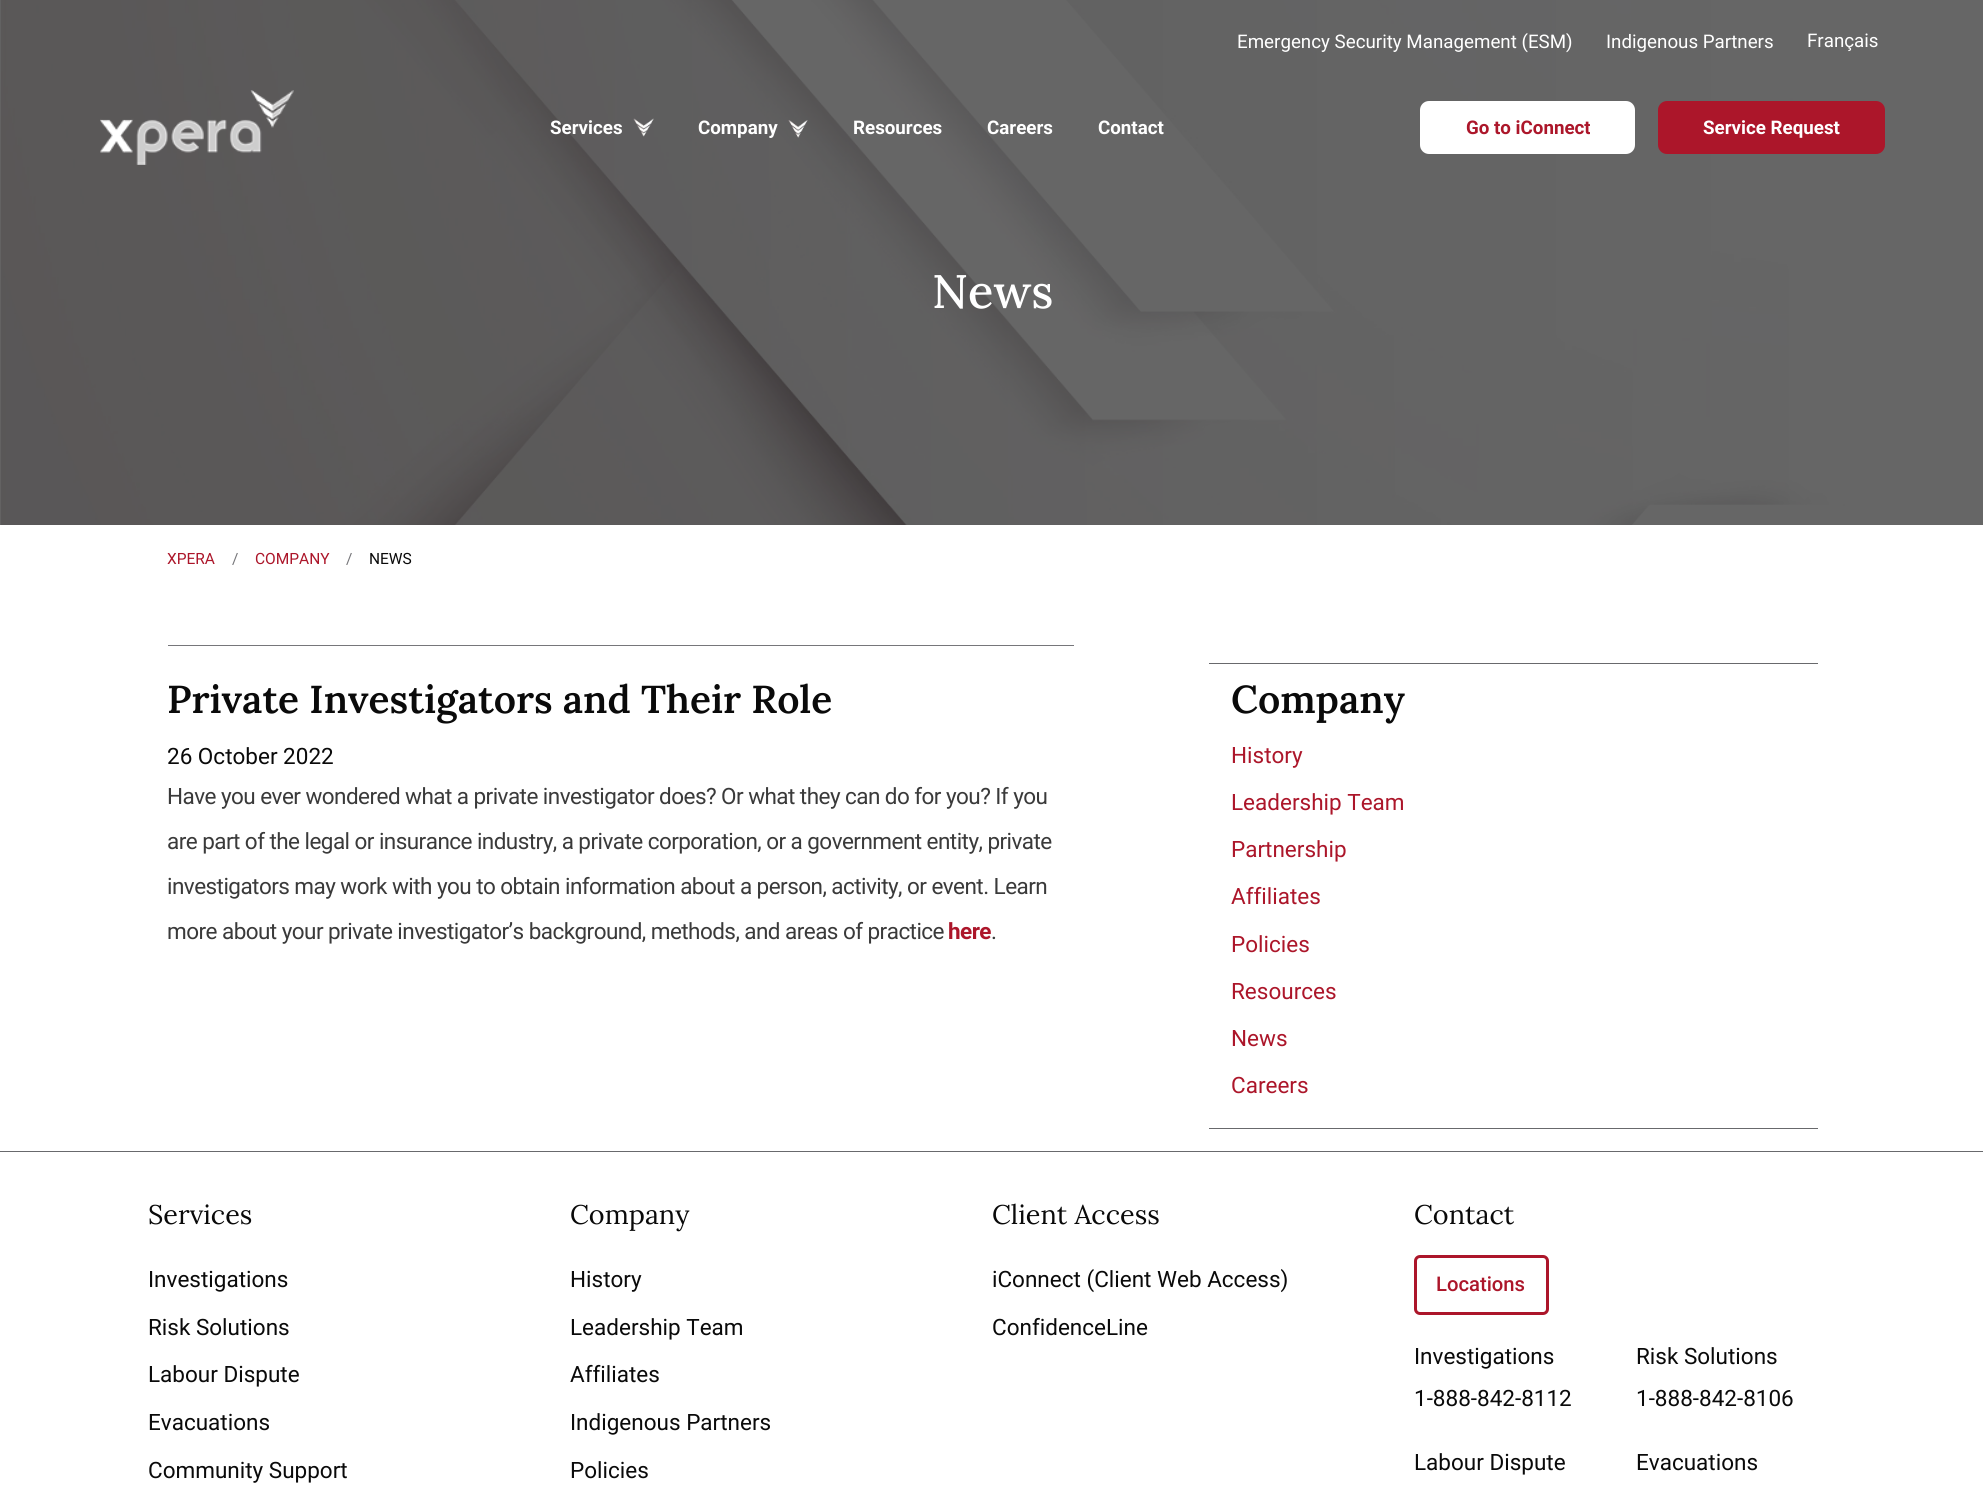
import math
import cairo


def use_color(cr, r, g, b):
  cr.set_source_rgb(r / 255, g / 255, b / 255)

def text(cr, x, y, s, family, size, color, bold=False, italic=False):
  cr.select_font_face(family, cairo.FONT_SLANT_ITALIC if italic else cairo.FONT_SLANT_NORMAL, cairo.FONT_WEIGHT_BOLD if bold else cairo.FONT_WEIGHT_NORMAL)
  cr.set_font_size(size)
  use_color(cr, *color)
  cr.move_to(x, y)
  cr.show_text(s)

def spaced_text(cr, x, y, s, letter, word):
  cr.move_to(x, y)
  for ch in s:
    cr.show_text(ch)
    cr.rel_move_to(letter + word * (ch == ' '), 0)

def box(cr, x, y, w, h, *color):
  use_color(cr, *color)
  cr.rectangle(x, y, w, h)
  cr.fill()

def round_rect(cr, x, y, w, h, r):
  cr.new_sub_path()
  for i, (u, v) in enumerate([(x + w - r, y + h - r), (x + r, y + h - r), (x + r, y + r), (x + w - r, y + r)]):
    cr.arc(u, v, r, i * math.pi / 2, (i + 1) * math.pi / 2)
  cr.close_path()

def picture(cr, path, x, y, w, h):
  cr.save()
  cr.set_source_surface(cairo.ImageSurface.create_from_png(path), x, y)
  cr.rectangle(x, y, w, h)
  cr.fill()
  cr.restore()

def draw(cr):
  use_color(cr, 255, 255, 255)
  cr.paint()
  picture(cr, "img_04.png", 0, 0, 1983, 525)
  picture(cr, "img_01.png", 100, 90, 194, 75)
  picture(cr, "img_02.png", 633, 118, 21, 19)
  picture(cr, "img_03.png", 788, 120, 20, 18)
  use_color(cr, 255, 255, 255)
  round_rect(cr, 1420, 101, 215, 53, 9)
  cr.fill()
  use_color(cr, 172, 22, 42)
  round_rect(cr, 1658, 101, 227, 53, 9)
  cr.fill()
  box(cr, 168, 645, 906, 1, 118, 118, 122)
  box(cr, 1209, 663, 609, 1, 104, 105, 108)
  box(cr, 1209, 1128, 609, 1, 104, 105, 108)
  box(cr, 0, 1151, 1983, 1, 104, 105, 108)
  round_rect(cr, 1415.5, 1256.5, 132, 57, 4.5)
  use_color(cr, 172, 22, 42)
  cr.set_line_width(3)
  cr.stroke()
  text(cr, 1237, 48, "Emergency Security Management (ESM)", "Roboto", 18.75, (255, 255, 255))
  text(cr, 1606, 48, "Indigenous Partners", "Roboto", 18.75, (255, 255, 255))
  text(cr, 1807, 47, "Français", "Roboto", 18.75, (255, 255, 255))
  text(cr, 550, 134, "Services", "Roboto", 18.75, (255, 255, 255), bold=True)
  text(cr, 698, 134, "Company", "Roboto", 18.75, (255, 255, 255), bold=True)
  text(cr, 853, 134, "Resources", "Roboto", 18.75, (255, 255, 255), bold=True)
  text(cr, 987, 134, "Careers", "Roboto", 18.75, (255, 255, 255), bold=True)
  text(cr, 1098, 134, "Contact", "Roboto", 18.75, (255, 255, 255), bold=True)
  text(cr, 1466, 134, "Go to iConnect", "Roboto", 18.75, (172, 22, 42), bold=True)
  text(cr, 1703, 134, "Service Request", "Roboto", 18.75, (255, 255, 255), bold=True)
  text(cr, 932, 308, "News", "Lora Medium", 47, (255, 255, 255))
  text(cr, 167, 564, "XPERA", "Roboto", 15.5, (172, 22, 42))
  text(cr, 232, 564, "/", "Roboto", 15.5, (118, 118, 122))
  text(cr, 255, 564, "COMPANY", "Roboto", 15.5, (172, 22, 42))
  text(cr, 346, 564, "/", "Roboto", 15.5, (118, 118, 122))
  text(cr, 369, 564, "NEWS", "Roboto", 15.5, (10, 10, 10))
  text(cr, 167, 713, "Private Investigators and Their Role", "Lora SemiBold", 38.9, (10, 10, 10))
  text(cr, 167, 764, "26 October 2022", "Roboto", 22.5, (10, 10, 10))
  use_color(cr, 58, 58, 58)
  spaced_text(cr, 167, 804, "Have you ever wondered what a private investigator does? Or what they can do for you? If you", -0.55, 0)
  spaced_text(cr, 167, 849, "are part of the legal or insurance industry, a private corporation, or a government entity, private", -0.55, 0)
  spaced_text(cr, 167, 894, "investigators may work with you to obtain information about a person, activity, or event. Learn", -0.55, 0)
  spaced_text(cr, 167, 939, "more about your private investigator’s background, methods, and areas of practice", -0.55, 0)
  cr.select_font_face("Roboto", cairo.FONT_SLANT_NORMAL, cairo.FONT_WEIGHT_BOLD)
  use_color(cr, 172, 22, 42)
  spaced_text(cr, 948, 939, "here", -0.55, 0)
  cr.select_font_face("Roboto")
  use_color(cr, 58, 58, 58)
  spaced_text(cr, 991, 939, ".", -0.55, 0)
  text(cr, 1231, 713, "Company", "Lora SemiBold", 38.9, (10, 10, 10))
  text(cr, 1231, 763, "History", "Roboto", 22.5, (172, 22, 42))
  text(cr, 1231, 810, "Leadership Team", "Roboto", 22.5, (172, 22, 42))
  text(cr, 1231, 857, "Partnership", "Roboto", 22.5, (172, 22, 42))
  text(cr, 1231, 904, "Affiliates", "Roboto", 22.5, (172, 22, 42))
  text(cr, 1231, 952, "Policies", "Roboto", 22.5, (172, 22, 42))
  text(cr, 1231, 999, "Resources", "Roboto", 22.5, (172, 22, 42))
  text(cr, 1231, 1046, "News", "Roboto", 22.5, (172, 22, 42))
  text(cr, 1231, 1093, "Careers", "Roboto", 22.5, (172, 22, 42))
  text(cr, 148, 1224, "Services", "Lora", 27, (10, 10, 10))
  text(cr, 148, 1287, "Investigations", "Roboto", 22.5, (10, 10, 10))
  text(cr, 148, 1335, "Risk Solutions", "Roboto", 22.5, (10, 10, 10))
  text(cr, 148, 1382, "Labour Dispute", "Roboto", 22.5, (10, 10, 10))
  text(cr, 148, 1430, "Evacuations", "Roboto", 22.5, (10, 10, 10))
  text(cr, 148, 1478, "Community Support", "Roboto", 22.5, (10, 10, 10))
  text(cr, 570, 1224, "Company", "Lora", 27, (10, 10, 10))
  text(cr, 570, 1287, "History", "Roboto", 22.5, (10, 10, 10))
  text(cr, 570, 1335, "Leadership Team", "Roboto", 22.5, (10, 10, 10))
  text(cr, 570, 1382, "Affiliates", "Roboto", 22.5, (10, 10, 10))
  text(cr, 570, 1430, "Indigenous Partners", "Roboto", 22.5, (10, 10, 10))
  text(cr, 570, 1478, "Policies", "Roboto", 22.5, (10, 10, 10))
  text(cr, 992, 1224, "Client Access", "Lora", 27, (10, 10, 10))
  text(cr, 992, 1287, "iConnect (Client Web Access)", "Roboto", 22.5, (10, 10, 10))
  text(cr, 992, 1335, "ConfidenceLine", "Roboto", 22.5, (10, 10, 10))
  text(cr, 1414, 1224, "Contact", "Lora", 27, (10, 10, 10))
  text(cr, 1436, 1291, "Locations", "Roboto Medium", 20.25, (172, 22, 42))
  text(cr, 1414, 1364, "Investigations", "Roboto", 22.5, (10, 10, 10))
  text(cr, 1414, 1406, "1-888-842-8112", "Roboto", 22.5, (10, 10, 10))
  text(cr, 1636, 1364, "Risk Solutions", "Roboto", 22.5, (10, 10, 10))
  text(cr, 1636, 1406, "1-888-842-8106", "Roboto", 22.5, (10, 10, 10))
  text(cr, 1414, 1470, "Labour Dispute", "Roboto", 22.5, (10, 10, 10))
  text(cr, 1636, 1470, "Evacuations", "Roboto", 22.5, (10, 10, 10))


surface = cairo.ImageSurface(cairo.FORMAT_RGB24, 1983, 1499)
cr = cairo.Context(surface)
options = cairo.FontOptions()
options.set_hint_metrics(cairo.HINT_METRICS_OFF)
options.set_hint_style(cairo.HINT_STYLE_NONE)
cr.set_font_options(options)
cr.set_miter_limit(4)
draw(cr)
surface.write_to_png("out.png")
